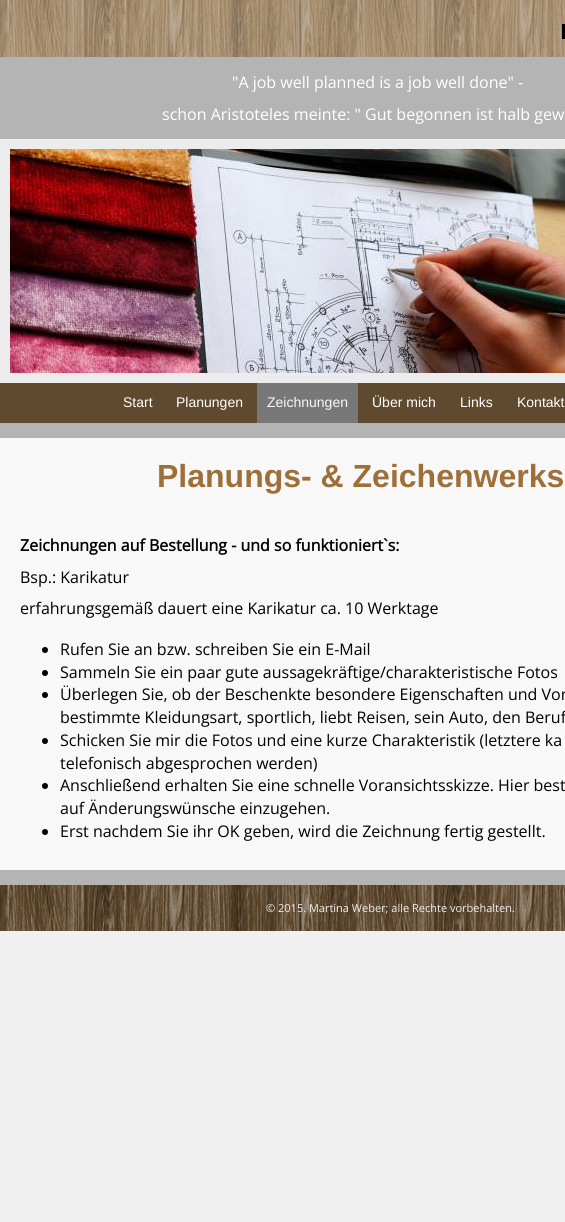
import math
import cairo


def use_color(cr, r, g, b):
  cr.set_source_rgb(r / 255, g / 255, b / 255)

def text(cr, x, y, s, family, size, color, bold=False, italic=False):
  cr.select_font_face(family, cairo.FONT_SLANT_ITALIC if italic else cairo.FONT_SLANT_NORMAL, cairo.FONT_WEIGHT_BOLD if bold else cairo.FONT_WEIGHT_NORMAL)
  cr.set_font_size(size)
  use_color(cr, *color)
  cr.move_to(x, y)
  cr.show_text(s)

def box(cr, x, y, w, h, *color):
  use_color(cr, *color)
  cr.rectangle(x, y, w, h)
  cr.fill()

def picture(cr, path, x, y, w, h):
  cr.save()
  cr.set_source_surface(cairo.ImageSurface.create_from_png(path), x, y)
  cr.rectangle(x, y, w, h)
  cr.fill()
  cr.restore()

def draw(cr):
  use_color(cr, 240, 240, 240)
  cr.paint()
  box(cr, 0, 0, 565, 885, 180, 180, 180)
  picture(cr, "img_01.png", 0, 0, 565, 57)
  box(cr, 562, 24, 3, 15, 0, 0, 0)
  box(cr, 0, 139, 565, 244, 236, 236, 236)
  picture(cr, "img_02.png", 10, 149, 555, 224)
  box(cr, 0, 383, 565, 40, 96, 74, 47)
  box(cr, 257, 383, 101, 40, 120, 120, 120)
  box(cr, 0, 438, 565, 432, 248, 248, 248)
  use_color(cr, 0, 0, 0)
  cr.arc(45, 650, 3, 0, 2 * math.pi)
  cr.fill()
  cr.arc(45, 673, 3, 0, 2 * math.pi)
  cr.fill()
  cr.arc(45, 695, 3, 0, 2 * math.pi)
  cr.fill()
  cr.arc(45, 741, 3, 0, 2 * math.pi)
  cr.fill()
  cr.arc(45, 786, 3, 0, 2 * math.pi)
  cr.fill()
  cr.arc(45, 832, 3, 0, 2 * math.pi)
  cr.fill()
  picture(cr, "img_03.png", 0, 885, 565, 46)
  text(cr, 232, 88, "\"A job well planned is a job well done\" -", "Open Sans", 16, (255, 255, 255))
  text(cr, 162, 120, "schon Aristoteles meinte: \" Gut begonnen ist halb gew", "Open Sans", 16, (255, 255, 255))
  text(cr, 123, 407, "Start", "Liberation Sans", 14, (255, 255, 255))
  text(cr, 176, 407, "Planungen", "Liberation Sans", 14, (255, 255, 255))
  text(cr, 267, 407, "Zeichnungen", "Liberation Sans", 14, (248, 248, 248))
  text(cr, 372, 407, "Über mich", "Liberation Sans", 14, (255, 255, 255))
  text(cr, 460, 407, "Links", "Liberation Sans", 14, (255, 255, 255))
  text(cr, 517, 407, "Kontakt", "Liberation Sans", 14, (255, 255, 255))
  text(cr, 157, 487, "Planungs- & Zeichenwerks", "Liberation Sans", 32, (157, 112, 57), bold=True)
  text(cr, 20, 551, "Zeichnungen auf Bestellung - und so funktioniert`s:", "Open Sans", 16, (0, 0, 0), bold=True)
  text(cr, 20, 583, "Bsp.: Karikatur", "Open Sans", 16, (0, 0, 0))
  text(cr, 20, 614, "erfahrungsgemäß dauert eine Karikatur ca. 10 Werktage", "Open Sans", 16, (0, 0, 0))
  text(cr, 60, 655, "Rufen Sie an bzw. schreiben Sie ein E-Mail", "Open Sans", 16, (0, 0, 0))
  text(cr, 60, 678, "Sammeln Sie ein paar gute aussagekräftige/charakteristische Fotos", "Open Sans", 16, (0, 0, 0))
  text(cr, 60, 700, "Überlegen Sie, ob der Beschenkte besondere Eigenschaften und Vor", "Open Sans", 16, (0, 0, 0))
  text(cr, 60, 723, "bestimmte Kleidungsart, sportlich, liebt Reisen, sein Auto, den Beruf", "Open Sans", 16, (0, 0, 0))
  text(cr, 60, 746, "Schicken Sie mir die Fotos und eine kurze Charakteristik (letztere ka", "Open Sans", 16, (0, 0, 0))
  text(cr, 60, 769, "telefonisch abgesprochen werden)", "Open Sans", 16, (0, 0, 0))
  text(cr, 60, 791, "Anschließend erhalten Sie eine schnelle Voransichtsskizze. Hier best", "Open Sans", 16, (0, 0, 0))
  text(cr, 60, 814, "auf Änderungswünsche einzugehen.", "Open Sans", 16, (0, 0, 0))
  text(cr, 60, 837, "Erst nachdem Sie ihr OK geben, wird die Zeichnung fertig gestellt.", "Open Sans", 16, (0, 0, 0))
  text(cr, 266, 912, "© 2015. Martina Weber; alle Rechte vorbehalten.", "Open Sans", 11, (240, 240, 240))


surface = cairo.ImageSurface(cairo.FORMAT_RGB24, 565, 1222)
cr = cairo.Context(surface)
options = cairo.FontOptions()
options.set_hint_metrics(cairo.HINT_METRICS_OFF)
options.set_hint_style(cairo.HINT_STYLE_NONE)
cr.set_font_options(options)
cr.set_miter_limit(4)
draw(cr)
surface.write_to_png("out.png")
